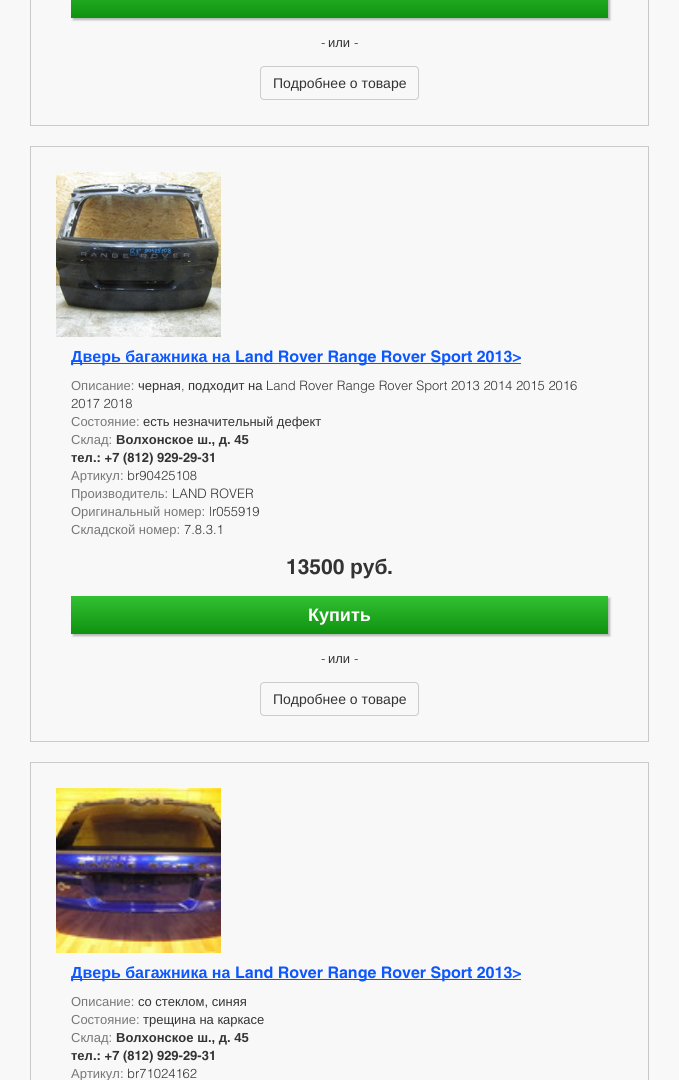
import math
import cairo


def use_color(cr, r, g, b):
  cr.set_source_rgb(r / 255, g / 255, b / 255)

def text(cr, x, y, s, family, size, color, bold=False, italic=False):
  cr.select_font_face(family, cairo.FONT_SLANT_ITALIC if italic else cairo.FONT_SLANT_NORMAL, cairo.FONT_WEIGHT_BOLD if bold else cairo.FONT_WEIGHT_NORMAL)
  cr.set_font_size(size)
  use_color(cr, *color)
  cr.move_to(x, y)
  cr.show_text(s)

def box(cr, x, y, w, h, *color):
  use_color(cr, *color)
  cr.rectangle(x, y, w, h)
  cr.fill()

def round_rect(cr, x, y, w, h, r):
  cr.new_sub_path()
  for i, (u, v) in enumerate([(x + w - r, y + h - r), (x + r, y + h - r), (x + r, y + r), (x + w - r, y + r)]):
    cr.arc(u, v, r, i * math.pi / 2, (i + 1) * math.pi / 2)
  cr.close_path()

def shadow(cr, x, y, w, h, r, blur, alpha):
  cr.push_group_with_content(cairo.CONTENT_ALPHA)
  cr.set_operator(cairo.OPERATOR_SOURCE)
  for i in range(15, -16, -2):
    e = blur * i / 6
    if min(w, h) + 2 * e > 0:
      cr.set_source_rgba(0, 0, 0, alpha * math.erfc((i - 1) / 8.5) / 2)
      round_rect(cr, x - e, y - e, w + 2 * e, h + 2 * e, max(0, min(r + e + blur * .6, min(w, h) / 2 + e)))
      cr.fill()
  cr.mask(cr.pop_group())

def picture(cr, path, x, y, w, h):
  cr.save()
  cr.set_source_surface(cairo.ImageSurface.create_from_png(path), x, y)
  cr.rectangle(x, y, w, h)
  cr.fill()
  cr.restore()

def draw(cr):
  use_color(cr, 248, 248, 248)
  cr.paint()
  cr.rectangle(30.5, -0.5, 618, 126)
  use_color(cr, 201, 201, 201)
  cr.set_line_width(1)
  cr.stroke()
  use_color(cr, 180, 181, 181)
  shadow(cr, 73, -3, 537, 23, 0, 1, 1)
  gradient = cairo.LinearGradient(340, -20, 340, 18)
  gradient.add_color_stop_rgba(0, 0.196, 0.753, 0.196, 1)
  gradient.add_color_stop_rgba(1, 0.059, 0.573, 0.059, 1)
  cr.set_source(gradient)
  cr.rectangle(71, 0, 537, 18)
  cr.fill()
  round_rect(cr, 260.5, 66.5, 158, 33, 3.5)
  use_color(cr, 204, 204, 204)
  cr.stroke()
  cr.rectangle(30.5, 146.5, 618, 595)
  use_color(cr, 201, 201, 201)
  cr.stroke()
  picture(cr, "img_01.png", 56, 172, 165, 165)
  box(cr, 71, 363, 450, 1, 13, 87, 255)
  use_color(cr, 180, 181, 181)
  shadow(cr, 73, 598, 537, 38, 0, 1, 1)
  gradient = cairo.LinearGradient(340, 596, 340, 634)
  gradient.add_color_stop_rgba(0, 0.196, 0.753, 0.196, 1)
  gradient.add_color_stop_rgba(1, 0.059, 0.573, 0.059, 1)
  cr.set_source(gradient)
  cr.rectangle(71, 596, 537, 38)
  cr.fill()
  round_rect(cr, 260.5, 682.5, 158, 33, 3.5)
  use_color(cr, 204, 204, 204)
  cr.stroke()
  cr.rectangle(30.5, 762.5, 618, 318)
  use_color(cr, 201, 201, 201)
  cr.stroke()
  picture(cr, "img_02.png", 56, 788, 165, 165)
  box(cr, 71, 979, 450, 1, 13, 87, 255)
  text(cr, 321, 47, "-", "Helvetica Light", 13, (51, 51, 51))
  text(cr, 328, 47, "или", "Liberation Sans", 13, (51, 51, 51))
  text(cr, 354, 47, "-", "Helvetica Light", 13, (51, 51, 51))
  text(cr, 273, 88, "Подробнее о товаре", "Liberation Sans", 14, (51, 51, 51))
  text(cr, 71, 362, "Дверь багажника на", "Liberation Sans", 16, (13, 87, 255), bold=True)
  text(cr, 235, 362, "Land Rover Range Rover Sport 2013>", "Helvetica", 16, (13, 87, 255), bold=True)
  text(cr, 71, 390, "Описание:", "Liberation Sans", 13, (119, 119, 119))
  text(cr, 138, 390, "черная", "Liberation Sans", 13, (51, 51, 51))
  text(cr, 181, 390, ",", "Helvetica Light", 13, (51, 51, 51))
  text(cr, 188, 390, "подходит на", "Liberation Sans", 13, (51, 51, 51))
  text(cr, 266, 390, "Land Rover Range Rover Sport 2013 2014 2015 2016", "Helvetica Light", 13, (51, 51, 51))
  text(cr, 71, 408, "2017 2018", "Helvetica Light", 13, (51, 51, 51))
  text(cr, 71, 426, "Состояние:", "Liberation Sans", 13, (119, 119, 119))
  text(cr, 143, 426, "есть незначительный дефект", "Liberation Sans", 13, (51, 51, 51))
  text(cr, 71, 444, "Склад:", "Liberation Sans", 13, (119, 119, 119))
  text(cr, 116, 444, "Волхонское ш., д. 45", "Liberation Sans", 13, (51, 51, 51), bold=True)
  text(cr, 71, 462, "тел", "Liberation Sans", 13, (51, 51, 51), bold=True)
  text(cr, 93, 462, ".: +7 (812) 929-29-31", "Helvetica", 13, (51, 51, 51), bold=True)
  text(cr, 71, 480, "Артикул:", "Liberation Sans", 13, (119, 119, 119))
  text(cr, 127, 480, "br90425108", "Helvetica Light", 13, (51, 51, 51))
  text(cr, 71, 498, "Производитель:", "Liberation Sans", 13, (119, 119, 119))
  text(cr, 172, 498, "LAND ROVER", "Helvetica Light", 13, (51, 51, 51))
  text(cr, 71, 516, "Оригинальный номер:", "Liberation Sans", 13, (119, 119, 119))
  text(cr, 209, 516, "lr055919", "Helvetica Light", 13, (51, 51, 51))
  text(cr, 71, 534, "Складской номер:", "Liberation Sans", 13, (119, 119, 119))
  text(cr, 184, 534, "7.8.3.1", "Helvetica Light", 13, (51, 51, 51))
  text(cr, 286, 574, "13500", "Helvetica", 21, (51, 51, 51), bold=True)
  text(cr, 350, 574, "руб", "Liberation Sans", 21, (51, 51, 51), bold=True)
  text(cr, 387, 574, ".", "Helvetica", 21, (51, 51, 51), bold=True)
  text(cr, 308, 621, "Купить", "Liberation Sans", 18, (255, 255, 255), bold=True)
  text(cr, 321, 663, "-", "Helvetica Light", 13, (51, 51, 51))
  text(cr, 328, 663, "или", "Liberation Sans", 13, (51, 51, 51))
  text(cr, 354, 663, "-", "Helvetica Light", 13, (51, 51, 51))
  text(cr, 273, 704, "Подробнее о товаре", "Liberation Sans", 14, (51, 51, 51))
  text(cr, 71, 978, "Дверь багажника на", "Liberation Sans", 16, (13, 87, 255), bold=True)
  text(cr, 235, 978, "Land Rover Range Rover Sport 2013>", "Helvetica", 16, (13, 87, 255), bold=True)
  text(cr, 71, 1006, "Описание:", "Liberation Sans", 13, (119, 119, 119))
  text(cr, 138, 1006, "со стеклом, синяя", "Liberation Sans", 13, (51, 51, 51))
  text(cr, 71, 1024, "Состояние:", "Liberation Sans", 13, (119, 119, 119))
  text(cr, 143, 1024, "трещина на каркасе", "Liberation Sans", 13, (51, 51, 51))
  text(cr, 71, 1042, "Склад:", "Liberation Sans", 13, (119, 119, 119))
  text(cr, 116, 1042, "Волхонское ш., д. 45", "Liberation Sans", 13, (51, 51, 51), bold=True)
  text(cr, 71, 1060, "тел", "Liberation Sans", 13, (51, 51, 51), bold=True)
  text(cr, 93, 1060, ".: +7 (812) 929-29-31", "Helvetica", 13, (51, 51, 51), bold=True)
  text(cr, 71, 1078, "Артикул:", "Liberation Sans", 13, (119, 119, 119))
  text(cr, 127, 1078, "br71024162", "Helvetica Light", 13, (51, 51, 51))


surface = cairo.ImageSurface(cairo.FORMAT_RGB24, 679, 1080)
cr = cairo.Context(surface)
options = cairo.FontOptions()
options.set_hint_metrics(cairo.HINT_METRICS_OFF)
options.set_hint_style(cairo.HINT_STYLE_NONE)
cr.set_font_options(options)
cr.set_miter_limit(4)
draw(cr)
surface.write_to_png("out.png")
